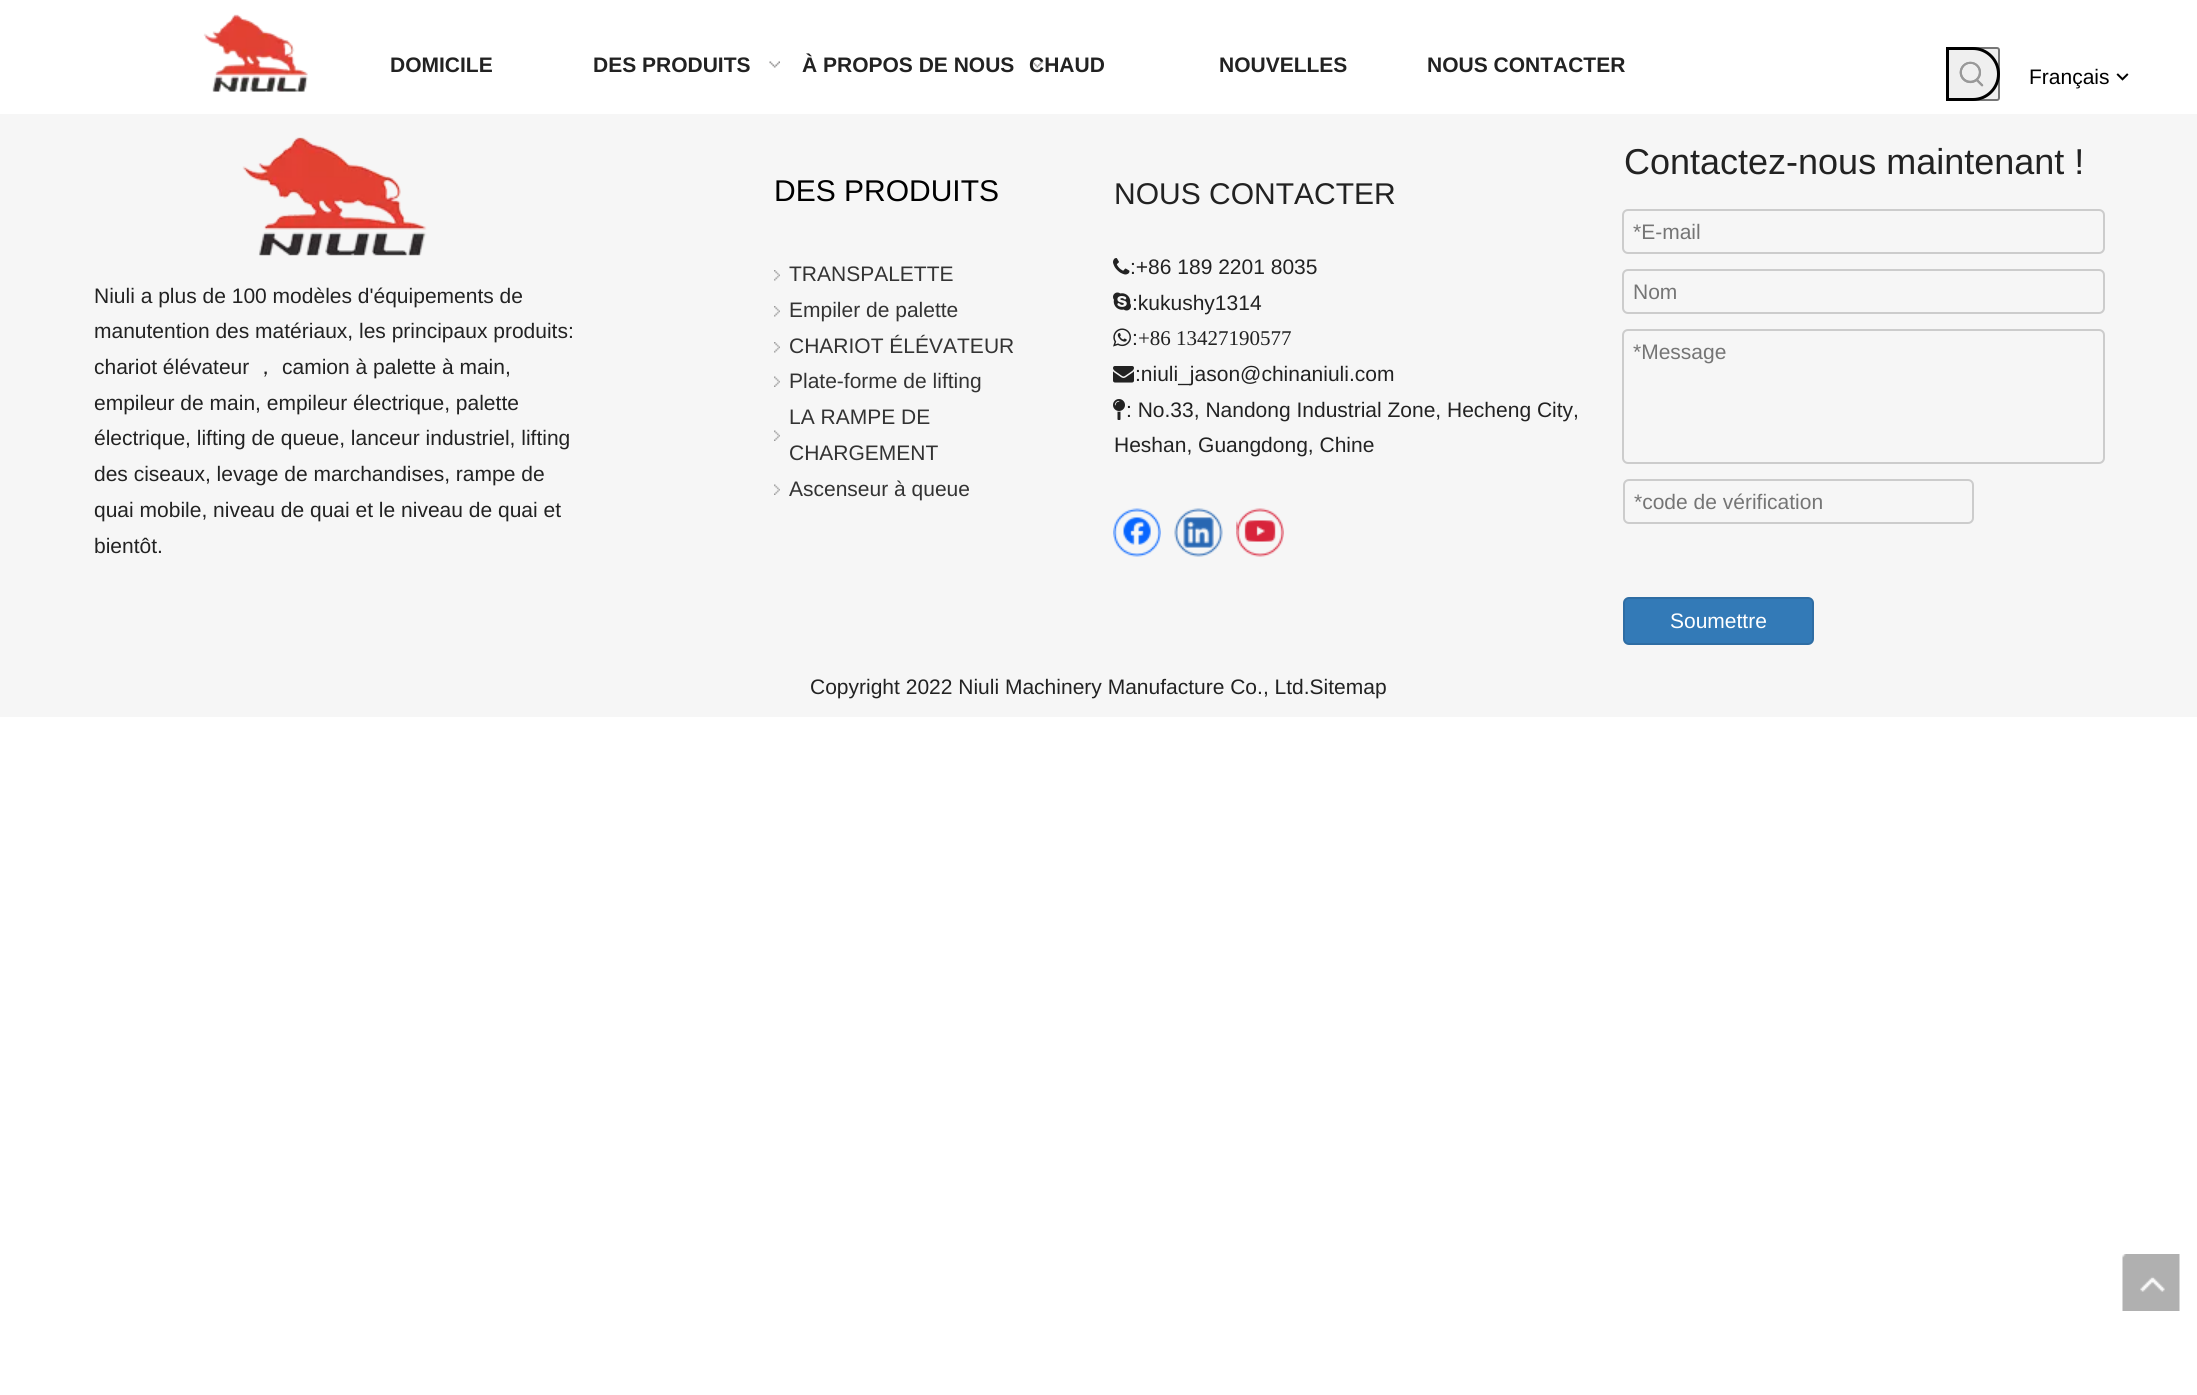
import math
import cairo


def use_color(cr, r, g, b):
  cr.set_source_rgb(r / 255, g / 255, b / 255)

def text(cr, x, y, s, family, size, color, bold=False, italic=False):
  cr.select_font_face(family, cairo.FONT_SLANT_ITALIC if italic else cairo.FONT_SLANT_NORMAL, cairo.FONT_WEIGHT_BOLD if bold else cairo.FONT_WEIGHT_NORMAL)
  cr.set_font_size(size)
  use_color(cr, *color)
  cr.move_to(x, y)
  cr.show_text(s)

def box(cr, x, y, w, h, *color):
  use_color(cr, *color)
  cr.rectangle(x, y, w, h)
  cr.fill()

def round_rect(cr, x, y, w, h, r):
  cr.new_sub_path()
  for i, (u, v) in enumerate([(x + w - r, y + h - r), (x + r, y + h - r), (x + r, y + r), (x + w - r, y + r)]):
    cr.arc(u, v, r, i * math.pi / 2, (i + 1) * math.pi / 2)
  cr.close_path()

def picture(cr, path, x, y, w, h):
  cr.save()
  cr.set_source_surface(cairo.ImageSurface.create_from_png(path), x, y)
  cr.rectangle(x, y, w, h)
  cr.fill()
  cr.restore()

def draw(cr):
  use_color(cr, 255, 255, 255)
  cr.paint()
  picture(cr, "img_01.png", 203, 14, 105, 78)
  picture(cr, "img_02.png", 769, 61, 11, 7)
  picture(cr, "img_03.png", 1032, 61, 11, 7)
  use_color(cr, 239, 239, 239)
  round_rect(cr, 1947, 48, 52, 52, 2)
  cr.fill_preserve()
  use_color(cr, 118, 118, 118)
  cr.stroke()
  picture(cr, "img_04.png", 1959, 61, 25, 26)
  cr.new_path()
  cr.move_to(1947.5, 48.5)
  cr.line_to(1973, 48.5)
  cr.curve_to(1987, 48.5, 1998.5, 60, 1998.5, 74)
  cr.curve_to(1998.5, 88, 1987, 99.5, 1973, 99.5)
  cr.line_to(1947.5, 99.5)
  cr.close_path()
  use_color(cr, 0, 0, 0)
  cr.set_line_width(3)
  cr.stroke()
  picture(cr, "img_05.png", 1959, 61, 25, 26)
  picture(cr, "img_06.png", 2116, 73, 13, 8)
  box(cr, 0, 114, 2197, 603, 246, 246, 246)
  picture(cr, "img_07.png", 242, 137, 185, 119)
  picture(cr, "img_08.png", 774, 270, 6, 11)
  picture(cr, "img_08.png", 774, 306, 6, 11)
  picture(cr, "img_08.png", 774, 342, 6, 11)
  picture(cr, "img_09.png", 774, 376, 6, 11)
  picture(cr, "img_09.png", 774, 430, 6, 11)
  picture(cr, "img_09.png", 774, 484, 6, 11)
  picture(cr, "img_10.png", 1113, 258, 17, 17)
  picture(cr, "img_11.png", 1113, 292, 18, 19)
  picture(cr, "img_12.png", 1113, 328, 18, 19)
  picture(cr, "img_13.png", 1113, 366, 21, 17)
  picture(cr, "img_14.png", 1113, 399, 12, 21)
  picture(cr, "img_15.png", 1113, 508, 48, 49)
  picture(cr, "img_16.png", 1174, 508, 49, 49)
  picture(cr, "img_17.png", 1236, 508, 48, 49)
  round_rect(cr, 1623, 210, 481, 43, 5)
  use_color(cr, 204, 204, 204)
  cr.set_line_width(2)
  cr.stroke()
  round_rect(cr, 1623, 270, 481, 43, 5)
  cr.stroke()
  round_rect(cr, 1623, 330, 481, 133, 5)
  cr.stroke()
  round_rect(cr, 1624, 480, 349, 43, 5)
  cr.stroke()
  use_color(cr, 51, 122, 183)
  round_rect(cr, 1624, 598, 189, 46, 5)
  cr.fill_preserve()
  use_color(cr, 46, 109, 164)
  cr.stroke()
  picture(cr, "img_18.png", 2122, 1254, 58, 57)
  text(cr, 390, 72, "DOMICILE", "Liberation Sans", 21, (34, 34, 34), bold=True)
  text(cr, 593, 72, "DES PRODUITS", "Liberation Sans", 21, (34, 34, 34), bold=True)
  text(cr, 802, 72, "À PROPOS DE NOUS", "Liberation Sans", 21, (34, 34, 34), bold=True)
  text(cr, 1029, 72, "CHAUD", "Liberation Sans", 21, (34, 34, 34), bold=True)
  text(cr, 1219, 72, "NOUVELLES", "Liberation Sans", 21, (34, 34, 34), bold=True)
  text(cr, 1427, 72, "NOUS CONTACTER", "Liberation Sans", 21, (34, 34, 34), bold=True)
  text(cr, 2029, 84, "Français", "Liberation Sans", 21, (0, 0, 0))
  text(cr, 94, 303, "Niuli a plus de 100 modèles d'équipements de", "Liberation Sans", 21, (34, 34, 34))
  text(cr, 94, 338, "manutention des matériaux, les principaux produits:", "Liberation Sans", 21, (34, 34, 34))
  text(cr, 94, 374, "chariot élévateur", "Liberation Sans", 21, (34, 34, 34))
  text(cr, 255, 374, "，", "WenQuanYi Zen Hei Medium", 21, (34, 34, 34))
  text(cr, 282, 374, "camion à palette à main,", "Liberation Sans", 21, (34, 34, 34))
  text(cr, 94, 410, "empileur de main, empileur électrique, palette", "Liberation Sans", 21, (34, 34, 34))
  text(cr, 94, 445, "électrique, lifting de queue, lanceur industriel, lifting", "Liberation Sans", 21, (34, 34, 34))
  text(cr, 94, 481, "des ciseaux, levage de marchandises, rampe de", "Liberation Sans", 21, (34, 34, 34))
  text(cr, 94, 517, "quai mobile, niveau de quai et le niveau de quai et", "Liberation Sans", 21, (34, 34, 34))
  text(cr, 94, 553, "bientôt.", "Liberation Sans", 21, (34, 34, 34))
  text(cr, 774, 201, "DES PRODUITS", "Liberation Sans", 30, (0, 0, 0))
  text(cr, 789, 281, "TRANSPALETTE", "Liberation Sans", 21, (51, 51, 51))
  text(cr, 789, 317, "Empiler de palette", "Liberation Sans", 21, (51, 51, 51))
  text(cr, 789, 353, "CHARIOT ÉLÉVATEUR", "Liberation Sans", 21, (51, 51, 51))
  text(cr, 789, 388, "Plate-forme de lifting", "Liberation Sans", 21, (51, 51, 51))
  text(cr, 789, 424, "LA RAMPE DE", "Liberation Sans", 21, (51, 51, 51))
  text(cr, 789, 460, "CHARGEMENT", "Liberation Sans", 21, (51, 51, 51))
  text(cr, 789, 496, "Ascenseur à queue", "Liberation Sans", 21, (51, 51, 51))
  text(cr, 1114, 204, "NOUS CONTACTER", "Liberation Sans", 30, (34, 34, 34))
  text(cr, 1130, 274, ":+86 189 2201 8035", "Liberation Sans", 21, (34, 34, 34))
  text(cr, 1132, 310, ":kukushy1314", "Liberation Sans", 21, (34, 34, 34))
  text(cr, 1132, 345, ":", "Liberation Sans", 21, (34, 34, 34))
  text(cr, 1138, 345, "+86 13427190577", "Liberation Serif", 21, (34, 34, 34))
  text(cr, 1135, 381, ":niuli_jason@chinaniuli.com", "Liberation Sans", 21, (34, 34, 34))
  text(cr, 1126, 417, ": No.33, Nandong Industrial Zone, Hecheng City,", "Liberation Sans", 21, (34, 34, 34))
  text(cr, 1114, 452, "Heshan, Guangdong, Chine", "Liberation Sans", 21, (34, 34, 34))
  text(cr, 1624, 174, "Contactez-nous maintenant !", "Liberation Sans", 36, (34, 34, 34))
  text(cr, 1633, 239, "*E-mail", "Liberation Sans", 21, (117, 117, 117))
  text(cr, 1633, 299, "Nom", "Liberation Sans", 21, (117, 117, 117))
  text(cr, 1633, 359, "*Message", "Liberation Sans", 21, (117, 117, 117))
  text(cr, 1634, 509, "*code de vérification", "Liberation Sans", 21, (117, 117, 117))
  text(cr, 1670, 628, "Soumettre", "Liberation Sans", 21, (255, 255, 255))
  text(cr, 810, 694, "Copyright 2022 Niuli Machinery Manufacture Co., Ltd.Sitemap", "Liberation Sans", 21, (34, 34, 34))


surface = cairo.ImageSurface(cairo.FORMAT_RGB24, 2197, 1395)
cr = cairo.Context(surface)
options = cairo.FontOptions()
options.set_hint_metrics(cairo.HINT_METRICS_OFF)
options.set_hint_style(cairo.HINT_STYLE_NONE)
cr.set_font_options(options)
cr.set_miter_limit(4)
draw(cr)
surface.write_to_png("out.png")
